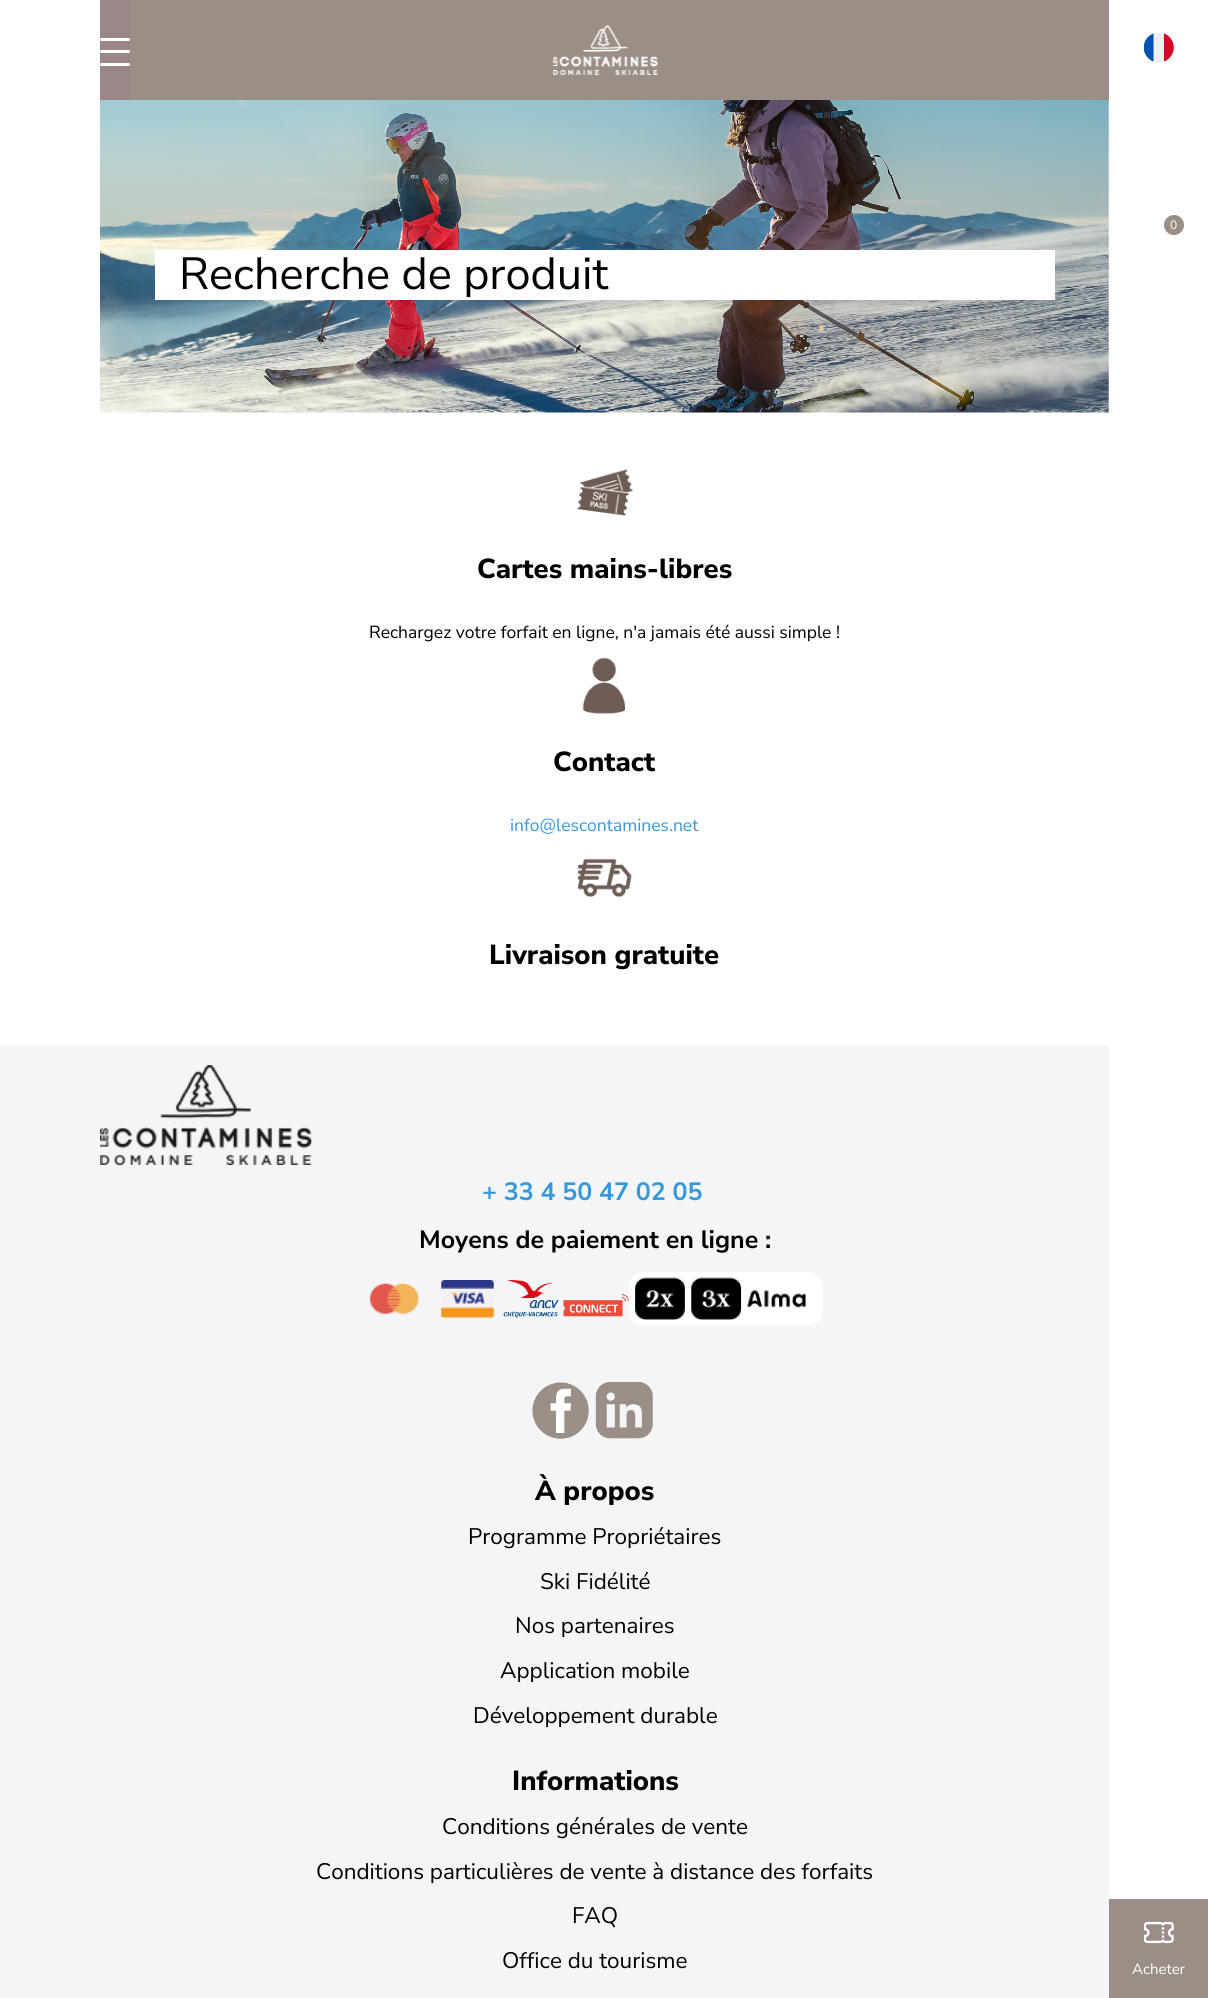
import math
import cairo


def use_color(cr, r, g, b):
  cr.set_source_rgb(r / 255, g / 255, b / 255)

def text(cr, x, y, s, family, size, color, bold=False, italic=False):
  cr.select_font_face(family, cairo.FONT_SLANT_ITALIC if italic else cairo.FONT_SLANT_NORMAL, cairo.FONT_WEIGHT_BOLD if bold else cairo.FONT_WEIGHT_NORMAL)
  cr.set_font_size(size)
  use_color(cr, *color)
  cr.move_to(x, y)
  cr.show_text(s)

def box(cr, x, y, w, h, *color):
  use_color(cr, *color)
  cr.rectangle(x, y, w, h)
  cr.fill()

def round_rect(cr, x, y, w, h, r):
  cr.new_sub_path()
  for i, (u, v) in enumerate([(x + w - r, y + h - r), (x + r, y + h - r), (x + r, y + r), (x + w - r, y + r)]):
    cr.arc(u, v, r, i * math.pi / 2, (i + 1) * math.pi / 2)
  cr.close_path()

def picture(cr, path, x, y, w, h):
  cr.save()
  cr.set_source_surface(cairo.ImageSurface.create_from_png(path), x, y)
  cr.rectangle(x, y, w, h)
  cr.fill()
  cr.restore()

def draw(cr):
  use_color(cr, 255, 255, 255)
  cr.paint()
  picture(cr, "img_01.png", 100, 100, 1009, 313)
  box(cr, 130, 0, 979, 100, 155, 142, 135)
  box(cr, 100, 0, 30, 100, 155, 135, 135)
  use_color(cr, 255, 255, 255)
  round_rect(cr, 100, 38, 30, 3, 1.5)
  cr.fill()
  round_rect(cr, 100, 50, 30, 3, 1.5)
  cr.fill()
  round_rect(cr, 100, 63, 30, 3, 1.5)
  cr.fill()
  picture(cr, "img_02.png", 552, 25, 106, 50)
  picture(cr, "img_03.png", 1144, 33, 30, 30)
  use_color(cr, 155, 142, 135)
  cr.arc(1174, 225, 9.5, 0, 2 * math.pi)
  cr.fill_preserve()
  cr.set_line_width(1)
  cr.stroke()
  box(cr, 1109, 1899, 99, 99, 155, 142, 135)
  picture(cr, "img_04.png", 1144, 1921, 30, 23)
  box(cr, 155, 250, 900, 50, 255, 255, 255)
  picture(cr, "img_05.png", 577, 469, 56, 47)
  picture(cr, "img_06.png", 582, 657, 44, 57)
  picture(cr, "img_07.png", 577, 858, 55, 39)
  box(cr, 0, 1046, 1109, 952, 244, 245, 247)
  picture(cr, "img_08.png", 100, 1065, 212, 100)
  picture(cr, "img_09.png", 369, 1283, 50, 31)
  picture(cr, "img_10.png", 441, 1280, 53, 38)
  picture(cr, "img_11.png", 503, 1280, 126, 38)
  picture(cr, "img_12.png", 628, 1271, 195, 55)
  picture(cr, "img_13.png", 532, 1382, 57, 57)
  picture(cr, "img_14.png", 595, 1381, 58, 58)
  text(cr, 1170, 229, "0", "Nunito Sans", 12, (255, 255, 255))
  text(cr, 1132, 1974, "Acheter", "Nunito Sans", 15, (255, 255, 255))
  text(cr, 179, 289, "Recherche de produit", "Nunito Sans", 45, (0, 0, 0))
  text(cr, 477, 578, "Cartes mains-libres", "Nunito Sans ExtraBold", 27.5, (0, 0, 0))
  text(cr, 369, 638, "Rechargez votre forfait en ligne, n'a jamais été aussi simple !", "Nunito Sans", 17.5, (0, 0, 0))
  text(cr, 553, 771, "Contact", "Nunito Sans ExtraBold", 27.5, (0, 0, 0))
  text(cr, 510, 831, "info@lescontamines.net", "Nunito Sans", 17.5, (52, 152, 219))
  text(cr, 489, 964, "Livraison gratuite", "Nunito Sans ExtraBold", 27.5, (0, 0, 0))
  text(cr, 482, 1200, "+ 33 4 50 47 02 05", "Nunito Sans", 25, (52, 152, 219), bold=True)
  text(cr, 419, 1248, "Moyens de paiement en ligne :", "Nunito Sans", 25, (0, 0, 0), bold=True)
  text(cr, 535, 1500, "À propos", "Nunito Sans ExtraBold", 27.5, (0, 0, 0))
  text(cr, 468, 1544, "Programme Propriétaires", "Nunito Sans", 22.5, (0, 0, 0))
  text(cr, 540, 1589, "Ski Fidélité", "Nunito Sans", 22.5, (0, 0, 0))
  text(cr, 515, 1633, "Nos partenaires", "Nunito Sans", 22.5, (0, 0, 0))
  text(cr, 500, 1678, "Application mobile", "Nunito Sans", 22.5, (0, 0, 0))
  text(cr, 473, 1723, "Développement durable", "Nunito Sans", 22.5, (0, 0, 0))
  text(cr, 512, 1790, "Informations", "Nunito Sans ExtraBold", 27.5, (0, 0, 0))
  text(cr, 442, 1834, "Conditions générales de vente", "Nunito Sans", 22.5, (0, 0, 0))
  text(cr, 316, 1879, "Conditions particulières de vente à distance des forfaits", "Nunito Sans", 22.5, (0, 0, 0))
  text(cr, 572, 1923, "FAQ", "Nunito Sans", 22.5, (0, 0, 0))
  text(cr, 502, 1968, "Office du tourisme", "Nunito Sans", 22.5, (0, 0, 0))


surface = cairo.ImageSurface(cairo.FORMAT_RGB24, 1208, 1998)
cr = cairo.Context(surface)
options = cairo.FontOptions()
options.set_hint_metrics(cairo.HINT_METRICS_OFF)
options.set_hint_style(cairo.HINT_STYLE_NONE)
cr.set_font_options(options)
cr.set_miter_limit(4)
draw(cr)
surface.write_to_png("out.png")
